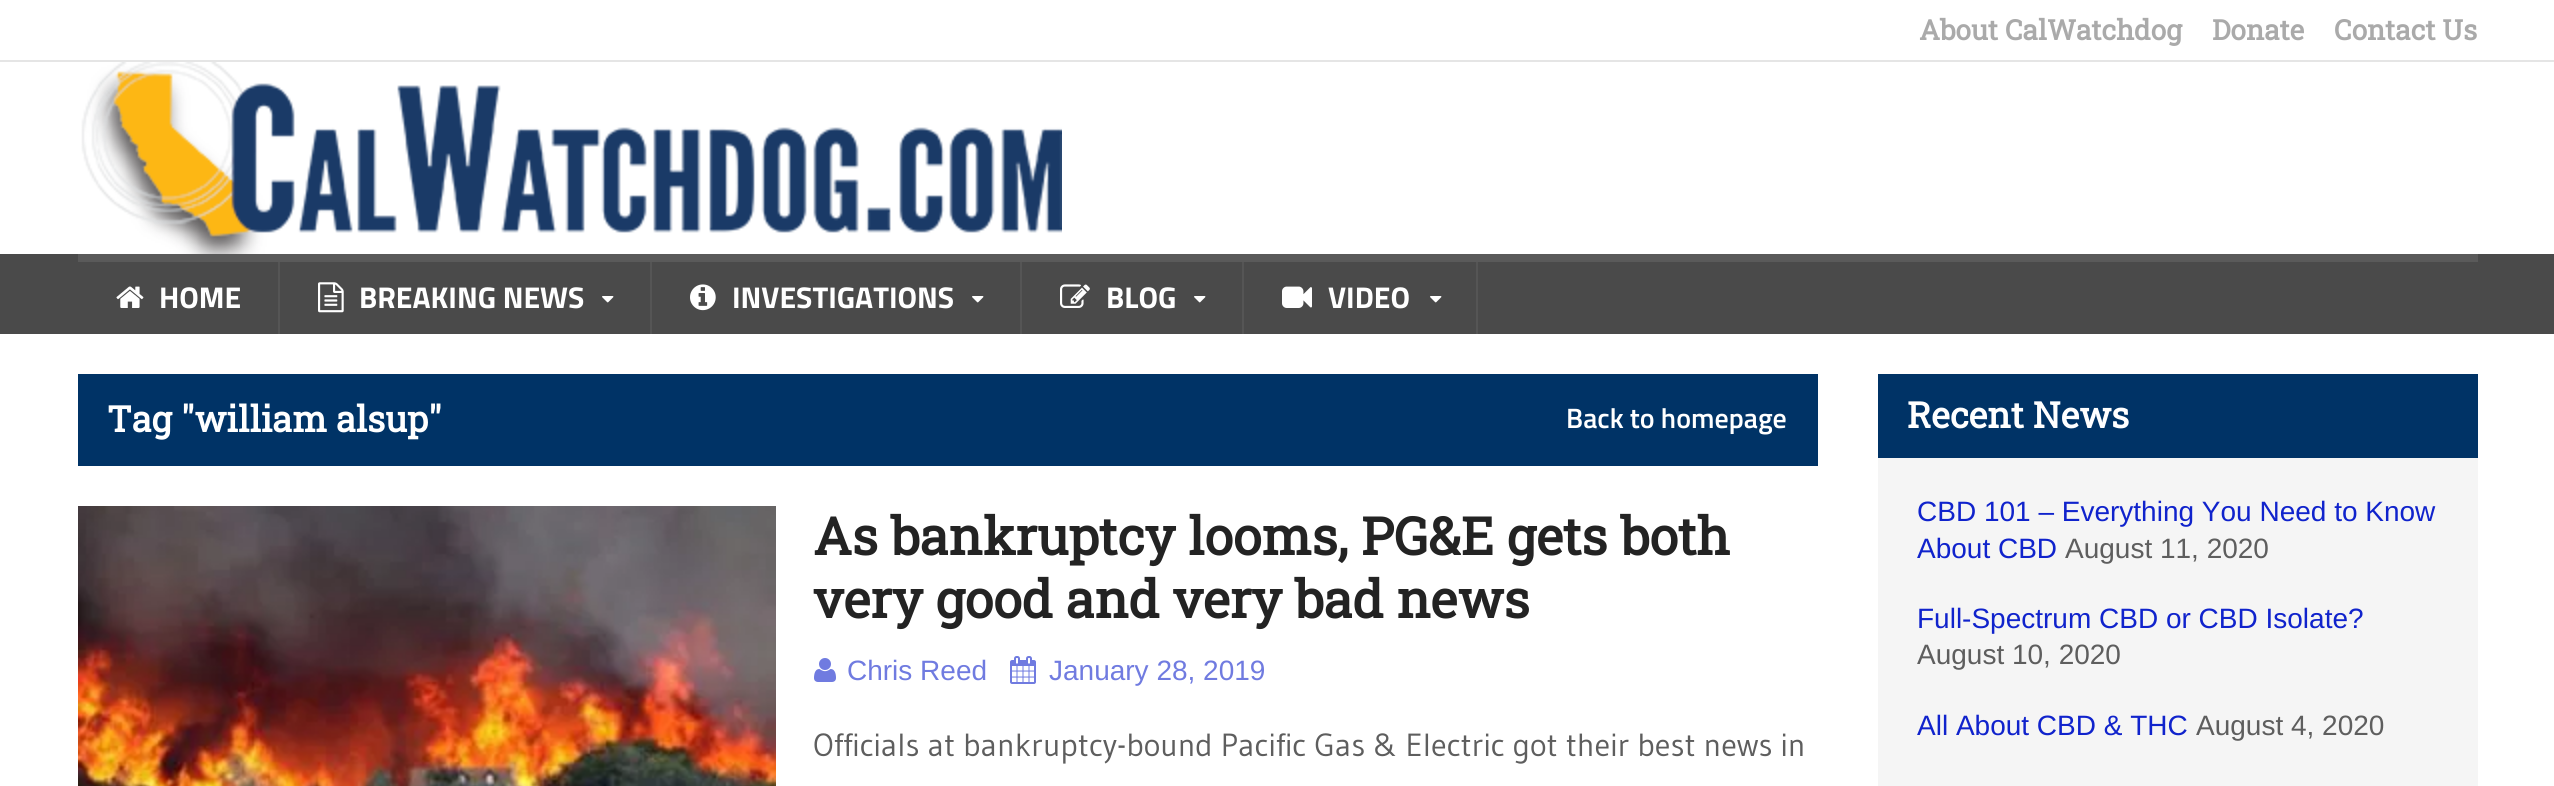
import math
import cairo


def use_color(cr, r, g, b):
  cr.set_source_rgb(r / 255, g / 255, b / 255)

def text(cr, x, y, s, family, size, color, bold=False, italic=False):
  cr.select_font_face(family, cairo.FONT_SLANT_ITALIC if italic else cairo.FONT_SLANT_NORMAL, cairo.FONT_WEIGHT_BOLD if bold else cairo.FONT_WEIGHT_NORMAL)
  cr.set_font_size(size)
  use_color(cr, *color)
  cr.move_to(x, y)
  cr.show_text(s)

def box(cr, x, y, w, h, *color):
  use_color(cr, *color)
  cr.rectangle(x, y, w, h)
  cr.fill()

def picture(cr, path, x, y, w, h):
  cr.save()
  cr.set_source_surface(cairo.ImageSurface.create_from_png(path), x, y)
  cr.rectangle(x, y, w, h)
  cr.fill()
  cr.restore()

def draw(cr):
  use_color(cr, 255, 255, 255)
  cr.paint()
  box(cr, 0, 60, 2554, 2, 229, 229, 229)
  picture(cr, "img_01.png", 81, 62, 981, 192)
  box(cr, 0, 254, 2554, 80, 74, 74, 74)
  box(cr, 1478, 254, 1000, 8, 90, 90, 90)
  picture(cr, "img_02.png", 116, 286, 28, 22)
  box(cr, 278, 262, 2, 72, 85, 85, 85)
  box(cr, 78, 254, 1400, 8, 90, 90, 90)
  picture(cr, "img_03.png", 318, 282, 26, 31)
  picture(cr, "img_04.png", 602, 296, 12, 7)
  box(cr, 650, 262, 2, 72, 85, 85, 85)
  picture(cr, "img_05.png", 690, 284, 26, 27)
  picture(cr, "img_04.png", 972, 296, 12, 7)
  box(cr, 1020, 262, 2, 72, 85, 85, 85)
  picture(cr, "img_06.png", 1060, 284, 30, 24)
  picture(cr, "img_04.png", 1194, 296, 12, 7)
  box(cr, 1242, 262, 2, 72, 85, 85, 85)
  picture(cr, "img_07.png", 1282, 286, 30, 22)
  picture(cr, "img_04.png", 1430, 296, 12, 7)
  box(cr, 1476, 262, 2, 72, 85, 85, 85)
  box(cr, 78, 374, 1740, 92, 0, 51, 102)
  picture(cr, "img_08.png", 78, 506, 698, 280)
  picture(cr, "img_09.png", 814, 658, 22, 24)
  picture(cr, "img_10.png", 1010, 656, 26, 28)
  box(cr, 1878, 374, 600, 84, 0, 51, 102)
  box(cr, 1878, 458, 600, 328, 245, 245, 245)
  text(cr, 1919, 40, "About CalWatchdog", "Roboto Slab", 28, (170, 170, 170), bold=True)
  text(cr, 2212, 40, "Donate", "Roboto Slab", 28, (170, 170, 170), bold=True)
  text(cr, 2334, 40, "Contact Us", "Roboto Slab", 28, (170, 170, 170), bold=True)
  text(cr, 159, 308, "HOME", "Titillium Web", 30, (255, 255, 255), bold=True)
  text(cr, 359, 308, "BREAKING NEWS", "Titillium Web", 30, (255, 255, 255), bold=True)
  text(cr, 732, 308, "INVESTIGATIONS", "Titillium Web", 30, (255, 255, 255), bold=True)
  text(cr, 1106, 308, "BLOG", "Titillium Web", 30, (255, 255, 255), bold=True)
  text(cr, 1328, 308, "VIDEO", "Titillium Web", 30, (255, 255, 255), bold=True)
  text(cr, 107, 432, "Tag \"william alsup\"", "Roboto Slab", 36, (255, 255, 255), bold=True)
  text(cr, 1566, 428, "Back to homepage", "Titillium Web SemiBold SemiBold", 28, (255, 255, 255))
  text(cr, 813, 555, "As bankruptcy looms, PG&E gets both", "Roboto Slab", 52, (35, 35, 35), bold=True)
  text(cr, 813, 618, "very good and very bad news", "Roboto Slab", 52, (35, 35, 35), bold=True)
  text(cr, 847, 680, "Chris Reed", "Liberation Sans", 28, (112, 123, 224))
  text(cr, 1049, 680, "January 28, 2019", "Liberation Sans", 28, (112, 123, 224))
  text(cr, 813, 756, "Officials at bankruptcy-bound Pacific Gas & Electric got their best news in", "Gudea", 32, (94, 94, 94))
  text(cr, 1907, 428, "Recent News", "Roboto Slab", 36, (255, 255, 255), bold=True)
  text(cr, 1917, 521, "CBD 101 – Everything You Need to Know", "Liberation Sans", 28, (16, 35, 204))
  text(cr, 1917, 558, "About CBD", "Liberation Sans", 28, (16, 35, 204))
  text(cr, 2065, 558, "August 11, 2020", "Liberation Sans", 28, (94, 94, 94))
  text(cr, 1917, 628, "Full-Spectrum CBD or CBD Isolate?", "Liberation Sans", 28, (16, 35, 204))
  text(cr, 1917, 664, "August 10, 2020", "Liberation Sans", 28, (94, 94, 94))
  text(cr, 1917, 735, "All About CBD & THC", "Liberation Sans", 28, (16, 35, 204))
  text(cr, 2196, 735, "August 4, 2020", "Liberation Sans", 28, (94, 94, 94))


surface = cairo.ImageSurface(cairo.FORMAT_RGB24, 2554, 786)
cr = cairo.Context(surface)
options = cairo.FontOptions()
options.set_hint_metrics(cairo.HINT_METRICS_OFF)
options.set_hint_style(cairo.HINT_STYLE_NONE)
cr.set_font_options(options)
cr.set_miter_limit(4)
draw(cr)
surface.write_to_png("out.png")
